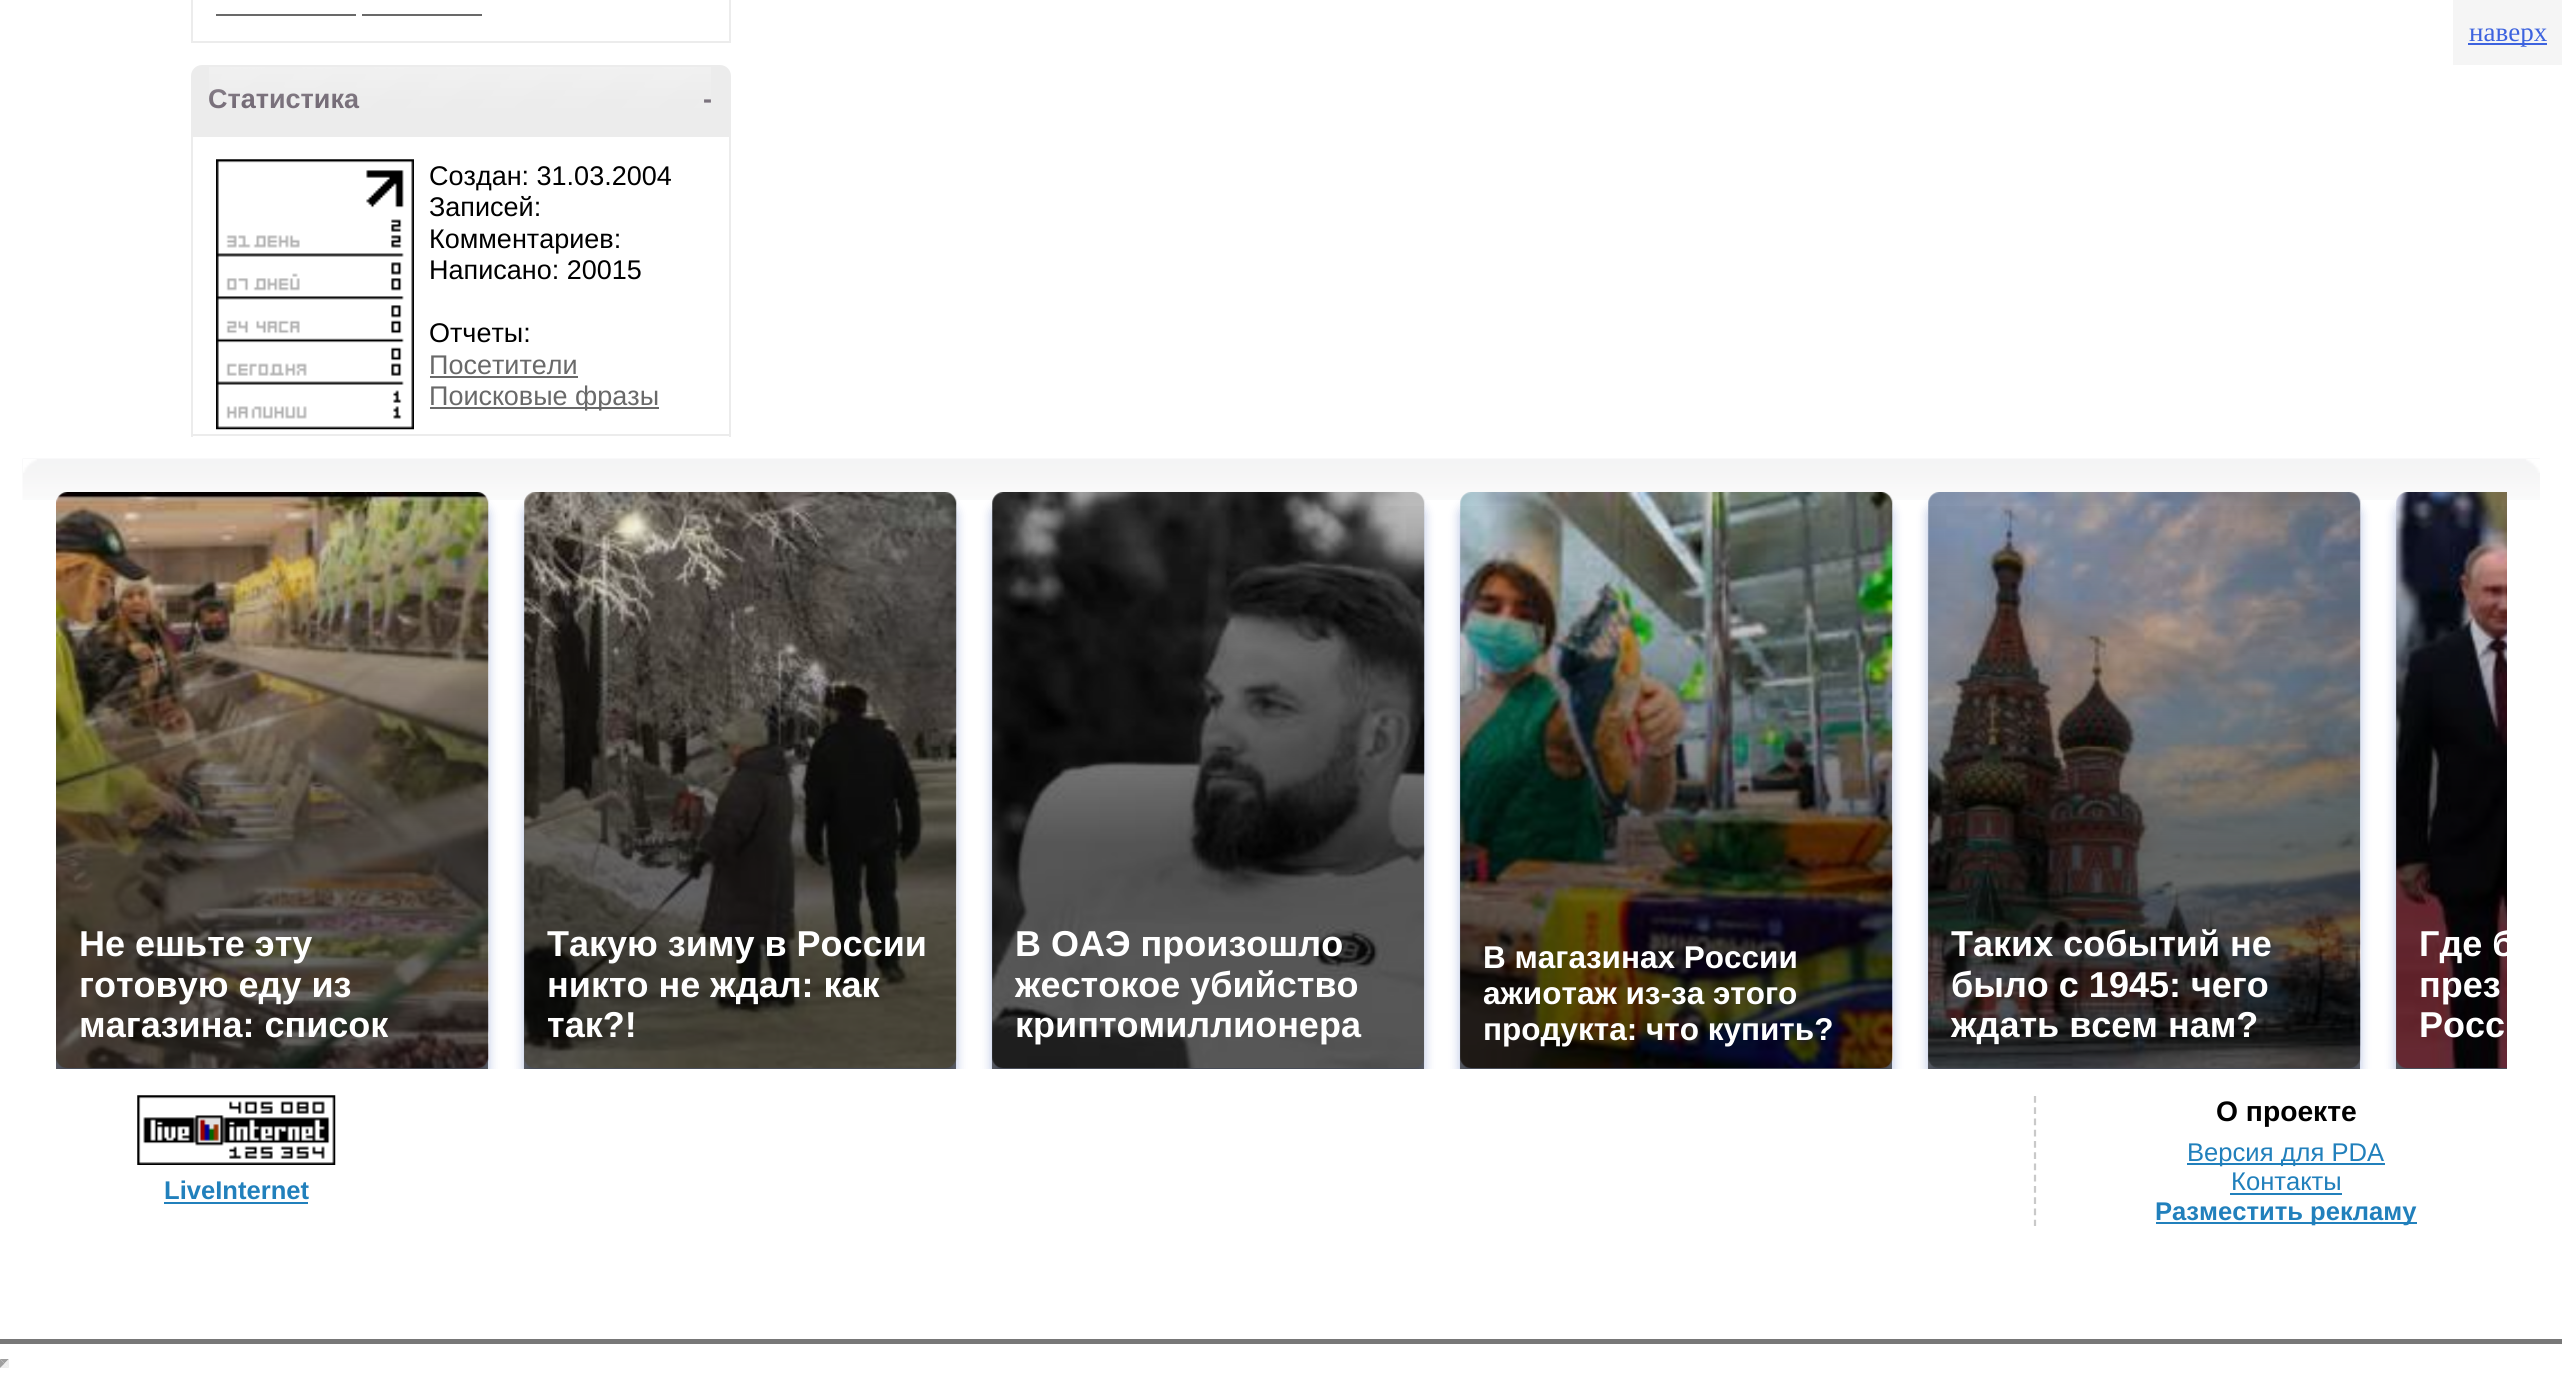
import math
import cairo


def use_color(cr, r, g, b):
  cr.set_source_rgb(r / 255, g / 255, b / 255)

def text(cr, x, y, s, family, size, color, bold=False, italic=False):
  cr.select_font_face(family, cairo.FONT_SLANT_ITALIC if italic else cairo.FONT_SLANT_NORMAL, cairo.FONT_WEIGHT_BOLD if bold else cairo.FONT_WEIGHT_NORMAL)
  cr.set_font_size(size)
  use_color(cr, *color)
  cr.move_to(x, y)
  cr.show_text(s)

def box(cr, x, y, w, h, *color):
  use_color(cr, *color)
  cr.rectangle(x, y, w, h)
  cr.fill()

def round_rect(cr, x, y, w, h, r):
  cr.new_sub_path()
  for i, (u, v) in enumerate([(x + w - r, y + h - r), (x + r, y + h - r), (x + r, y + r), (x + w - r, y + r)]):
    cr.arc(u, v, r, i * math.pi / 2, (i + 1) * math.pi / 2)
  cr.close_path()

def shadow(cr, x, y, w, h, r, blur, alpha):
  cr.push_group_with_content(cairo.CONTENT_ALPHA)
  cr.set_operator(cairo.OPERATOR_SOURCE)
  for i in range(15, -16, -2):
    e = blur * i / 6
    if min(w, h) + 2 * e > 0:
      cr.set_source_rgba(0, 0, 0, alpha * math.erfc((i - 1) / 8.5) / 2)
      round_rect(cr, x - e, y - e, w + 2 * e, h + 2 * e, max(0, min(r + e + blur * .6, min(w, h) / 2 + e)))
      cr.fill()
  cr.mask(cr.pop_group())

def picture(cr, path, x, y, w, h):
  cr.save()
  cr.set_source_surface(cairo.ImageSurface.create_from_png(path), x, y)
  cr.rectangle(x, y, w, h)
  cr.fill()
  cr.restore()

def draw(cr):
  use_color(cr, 255, 255, 255)
  cr.paint()
  box(cr, 2453, 0, 109, 65, 245, 245, 245)
  box(cr, 2468, 43, 79, 2, 61, 99, 223)
  box(cr, 729, 0, 2, 43, 236, 236, 236)
  box(cr, 191, 41, 540, 2, 236, 236, 236)
  box(cr, 191, 0, 2, 43, 236, 236, 236)
  box(cr, 216, 14, 140, 2, 105, 105, 105)
  box(cr, 362, 14, 120, 2, 105, 105, 105)
  use_color(cr, 236, 236, 236)
  cr.new_path()
  cr.move_to(202, 66)
  cr.line_to(720, 66)
  cr.curve_to(725.5, 66, 730, 70.5, 730, 76)
  cr.line_to(730, 136)
  cr.line_to(192, 136)
  cr.line_to(192, 76)
  cr.curve_to(192, 70.5, 196.5, 66, 202, 66)
  cr.close_path()
  cr.fill_preserve()
  cr.stroke()
  box(cr, 729, 137, 2, 300, 236, 236, 236)
  box(cr, 191, 434, 540, 2, 236, 236, 236)
  box(cr, 191, 137, 2, 300, 236, 236, 236)
  picture(cr, "img_02.png", 216, 159, 198, 271)
  box(cr, 430, 376, 148, 2, 105, 105, 105)
  box(cr, 430, 407, 229, 2, 105, 105, 105)
  box(cr, 0, 1339, 2562, 5, 120, 120, 120)
  picture(cr, "img_03.png", 22, 458, 2518, 42)
  picture(cr, "img_04.png", 23, 459, 14, 14)
  picture(cr, "img_05.png", 2526, 459, 14, 14)
  picture(cr, "img_12.png", 137, 1095, 199, 70)
  cr.save()
  cr.rectangle(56, 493, 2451, 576)
  cr.clip()
  use_color(cr, 0, 41, 158)
  shadow(cr, 56, 504, 432, 576, 11, 5.5, 0.3)
  cr.restore()
  picture(cr, "img_06.png", 56, 492, 433, 576)
  gradient = cairo.LinearGradient(272, 493, 272, 1069)
  gradient.add_color_stop_rgba(0, 0, 0, 0, 0)
  gradient.add_color_stop_rgba(0.61, 0, 0, 0, 0.6)
  cr.set_source(gradient)
  cr.rectangle(56, 506, 432, 563)
  cr.fill()
  cr.save()
  cr.rectangle(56, 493, 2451, 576)
  cr.clip()
  use_color(cr, 0, 41, 158)
  shadow(cr, 524, 504, 432, 576, 11, 5.5, 0.3)
  cr.restore()
  picture(cr, "img_07.png", 524, 492, 433, 576)
  gradient = cairo.LinearGradient(740, 493, 740, 1069)
  gradient.add_color_stop_rgba(0, 0, 0, 0, 0)
  gradient.add_color_stop_rgba(0.61, 0, 0, 0, 0.6)
  cr.set_source(gradient)
  cr.rectangle(524, 506, 432, 563)
  cr.fill()
  cr.save()
  cr.rectangle(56, 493, 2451, 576)
  cr.clip()
  use_color(cr, 0, 41, 158)
  shadow(cr, 992, 504, 432, 576, 11, 5.5, 0.3)
  cr.restore()
  picture(cr, "img_08.png", 992, 492, 433, 576)
  gradient = cairo.LinearGradient(1208, 493, 1208, 1069)
  gradient.add_color_stop_rgba(0, 0, 0, 0, 0)
  gradient.add_color_stop_rgba(0.61, 0, 0, 0, 0.6)
  cr.set_source(gradient)
  cr.rectangle(992, 506, 432, 563)
  cr.fill()
  cr.save()
  cr.rectangle(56, 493, 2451, 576)
  cr.clip()
  use_color(cr, 0, 41, 158)
  shadow(cr, 1460, 504, 432, 576, 11, 5.5, 0.3)
  cr.restore()
  picture(cr, "img_09.png", 1460, 492, 433, 576)
  gradient = cairo.LinearGradient(1676, 493, 1676, 1069)
  gradient.add_color_stop_rgba(0, 0, 0, 0, 0)
  gradient.add_color_stop_rgba(0.61, 0, 0, 0, 0.6)
  cr.set_source(gradient)
  cr.rectangle(1460, 506, 432, 563)
  cr.fill()
  cr.new_path()
  cr.move_to(2035, 1096)
  cr.line_to(2035, 1226)
  use_color(cr, 201, 201, 201)
  cr.set_line_width(2.2)
  cr.set_dash([6.75, 4.5])
  cr.stroke()
  cr.save()
  cr.rectangle(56, 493, 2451, 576)
  cr.clip()
  use_color(cr, 0, 41, 158)
  shadow(cr, 1928, 504, 432, 576, 11, 5.5, 0.3)
  cr.restore()
  picture(cr, "img_10.png", 1928, 492, 433, 576)
  gradient = cairo.LinearGradient(2144, 493, 2144, 1069)
  gradient.add_color_stop_rgba(0, 0, 0, 0, 0)
  gradient.add_color_stop_rgba(0.61, 0, 0, 0, 0.6)
  cr.set_source(gradient)
  cr.rectangle(1928, 506, 432, 563)
  cr.fill()
  cr.save()
  cr.rectangle(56, 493, 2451, 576)
  cr.clip()
  use_color(cr, 0, 41, 158)
  shadow(cr, 2396, 504, 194, 576, 11, 5.5, 0.3)
  cr.restore()
  picture(cr, "img_11.png", 2396, 492, 111, 576)
  gradient = cairo.LinearGradient(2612, 493, 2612, 1069)
  gradient.add_color_stop_rgba(0, 0, 0, 0, 0)
  gradient.add_color_stop_rgba(0.61, 0, 0, 0, 0.6)
  cr.set_source(gradient)
  cr.rectangle(2396, 506, 111, 563)
  cr.fill()
  box(cr, 164, 1202, 144, 2, 33, 128, 188)
  box(cr, 2187, 1163, 198, 2, 33, 128, 188)
  box(cr, 2230, 1193, 112, 2, 33, 128, 188)
  box(cr, 2156, 1222, 261, 2, 33, 128, 188)
  use_color(cr, 159, 159, 159)
  cr.new_path()
  cr.move_to(0, 1359)
  cr.line_to(9, 1359)
  cr.line_to(4.5, 1363.5)
  cr.close_path()
  cr.fill()
  use_color(cr, 238, 238, 238)
  cr.new_path()
  cr.move_to(9, 1359)
  cr.line_to(9, 1368)
  cr.line_to(4.5, 1363.5)
  cr.close_path()
  cr.fill()
  cr.new_path()
  cr.move_to(9, 1368)
  cr.line_to(0, 1368)
  cr.line_to(4.5, 1363.5)
  cr.close_path()
  cr.fill()
  use_color(cr, 159, 159, 159)
  cr.new_path()
  cr.move_to(0, 1368)
  cr.line_to(0, 1359)
  cr.line_to(4.5, 1363.5)
  cr.close_path()
  cr.fill()
  text(cr, 2469, 41, "наверх", "Liberation Serif", 27, (61, 99, 223))
  text(cr, 208, 108, "Статистика", "Liberation Sans", 27, (115, 106, 117), bold=True)
  text(cr, 703, 108, "-", "Liberation Sans", 27, (115, 106, 117), bold=True)
  picture(cr, "img_01.png", 209, 67, 502, 41)
  text(cr, 429, 185, "Создан: 31.03.2004", "Liberation Sans", 27, (0, 0, 0))
  text(cr, 429, 216, "Записей:", "Liberation Sans", 27, (0, 0, 0))
  text(cr, 429, 248, "Комментариев:", "Liberation Sans", 27, (0, 0, 0))
  text(cr, 429, 279, "Написано: 20015", "Liberation Sans", 27, (0, 0, 0))
  text(cr, 429, 342, "Отчеты:", "Liberation Sans", 27, (0, 0, 0))
  text(cr, 429, 374, "Посетители", "Liberation Sans", 27, (105, 105, 105))
  text(cr, 429, 405, "Поисковые фразы", "Liberation Sans", 27, (105, 105, 105))
  text(cr, 79, 956, "Не ешьте эту", "Liberation Sans", 36, (255, 255, 255), bold=True)
  text(cr, 79, 997, "готовую еду из", "Liberation Sans", 36, (255, 255, 255), bold=True)
  text(cr, 79, 1037, "магазина: список", "Liberation Sans", 36, (255, 255, 255), bold=True)
  text(cr, 547, 956, "Такую зиму в России", "Liberation Sans", 36, (255, 255, 255), bold=True)
  text(cr, 547, 997, "никто не ждал: как", "Liberation Sans", 36, (255, 255, 255), bold=True)
  text(cr, 547, 1037, "так?!", "Liberation Sans", 36, (255, 255, 255), bold=True)
  text(cr, 1015, 956, "В ОАЭ произошло", "Liberation Sans", 36, (255, 255, 255), bold=True)
  text(cr, 1015, 997, "жестокое убийство", "Liberation Sans", 36, (255, 255, 255), bold=True)
  text(cr, 1015, 1037, "криптомиллионера", "Liberation Sans", 36, (255, 255, 255), bold=True)
  text(cr, 1483, 968, "В магазинах России", "Liberation Sans", 31.5, (255, 255, 255), bold=True)
  text(cr, 1483, 1004, "ажиотаж из-за этого", "Liberation Sans", 31.5, (255, 255, 255), bold=True)
  text(cr, 1483, 1040, "продукта: что купить?", "Liberation Sans", 31.5, (255, 255, 255), bold=True)
  text(cr, 1951, 956, "Таких событий не", "Liberation Sans", 36, (255, 255, 255), bold=True)
  text(cr, 1951, 997, "было с 1945: чего", "Liberation Sans", 36, (255, 255, 255), bold=True)
  text(cr, 1951, 1037, "ждать всем нам?", "Liberation Sans", 36, (255, 255, 255), bold=True)
  cr.save()
  cr.rectangle(56, 493, 2451, 576)
  cr.clip()
  text(cr, 2419, 956, "Где б", "Liberation Sans", 36, (255, 255, 255), bold=True)
  cr.restore()
  text(cr, 2419, 997, "през", "Liberation Sans", 36, (255, 255, 255), bold=True)
  text(cr, 2419, 1037, "Росс", "Liberation Sans", 36, (255, 255, 255), bold=True)
  text(cr, 164, 1199, "LiveInternet", "Liberation Sans", 25.6, (33, 128, 188), bold=True)
  text(cr, 2216, 1121, "О проекте", "Liberation Sans", 28.25, (0, 0, 0), bold=True)
  text(cr, 2187, 1161, "Версия для PDA", "Liberation Sans", 25.6, (33, 128, 188))
  text(cr, 2231, 1190, "Контакты", "Liberation Sans", 25.6, (33, 128, 188))
  text(cr, 2155, 1220, "Разместить рекламу", "Liberation Sans", 25.6, (33, 128, 188), bold=True)


surface = cairo.ImageSurface(cairo.FORMAT_RGB24, 2562, 1373)
cr = cairo.Context(surface)
options = cairo.FontOptions()
options.set_hint_metrics(cairo.HINT_METRICS_OFF)
options.set_hint_style(cairo.HINT_STYLE_NONE)
cr.set_font_options(options)
cr.set_miter_limit(4)
draw(cr)
surface.write_to_png("out.png")
